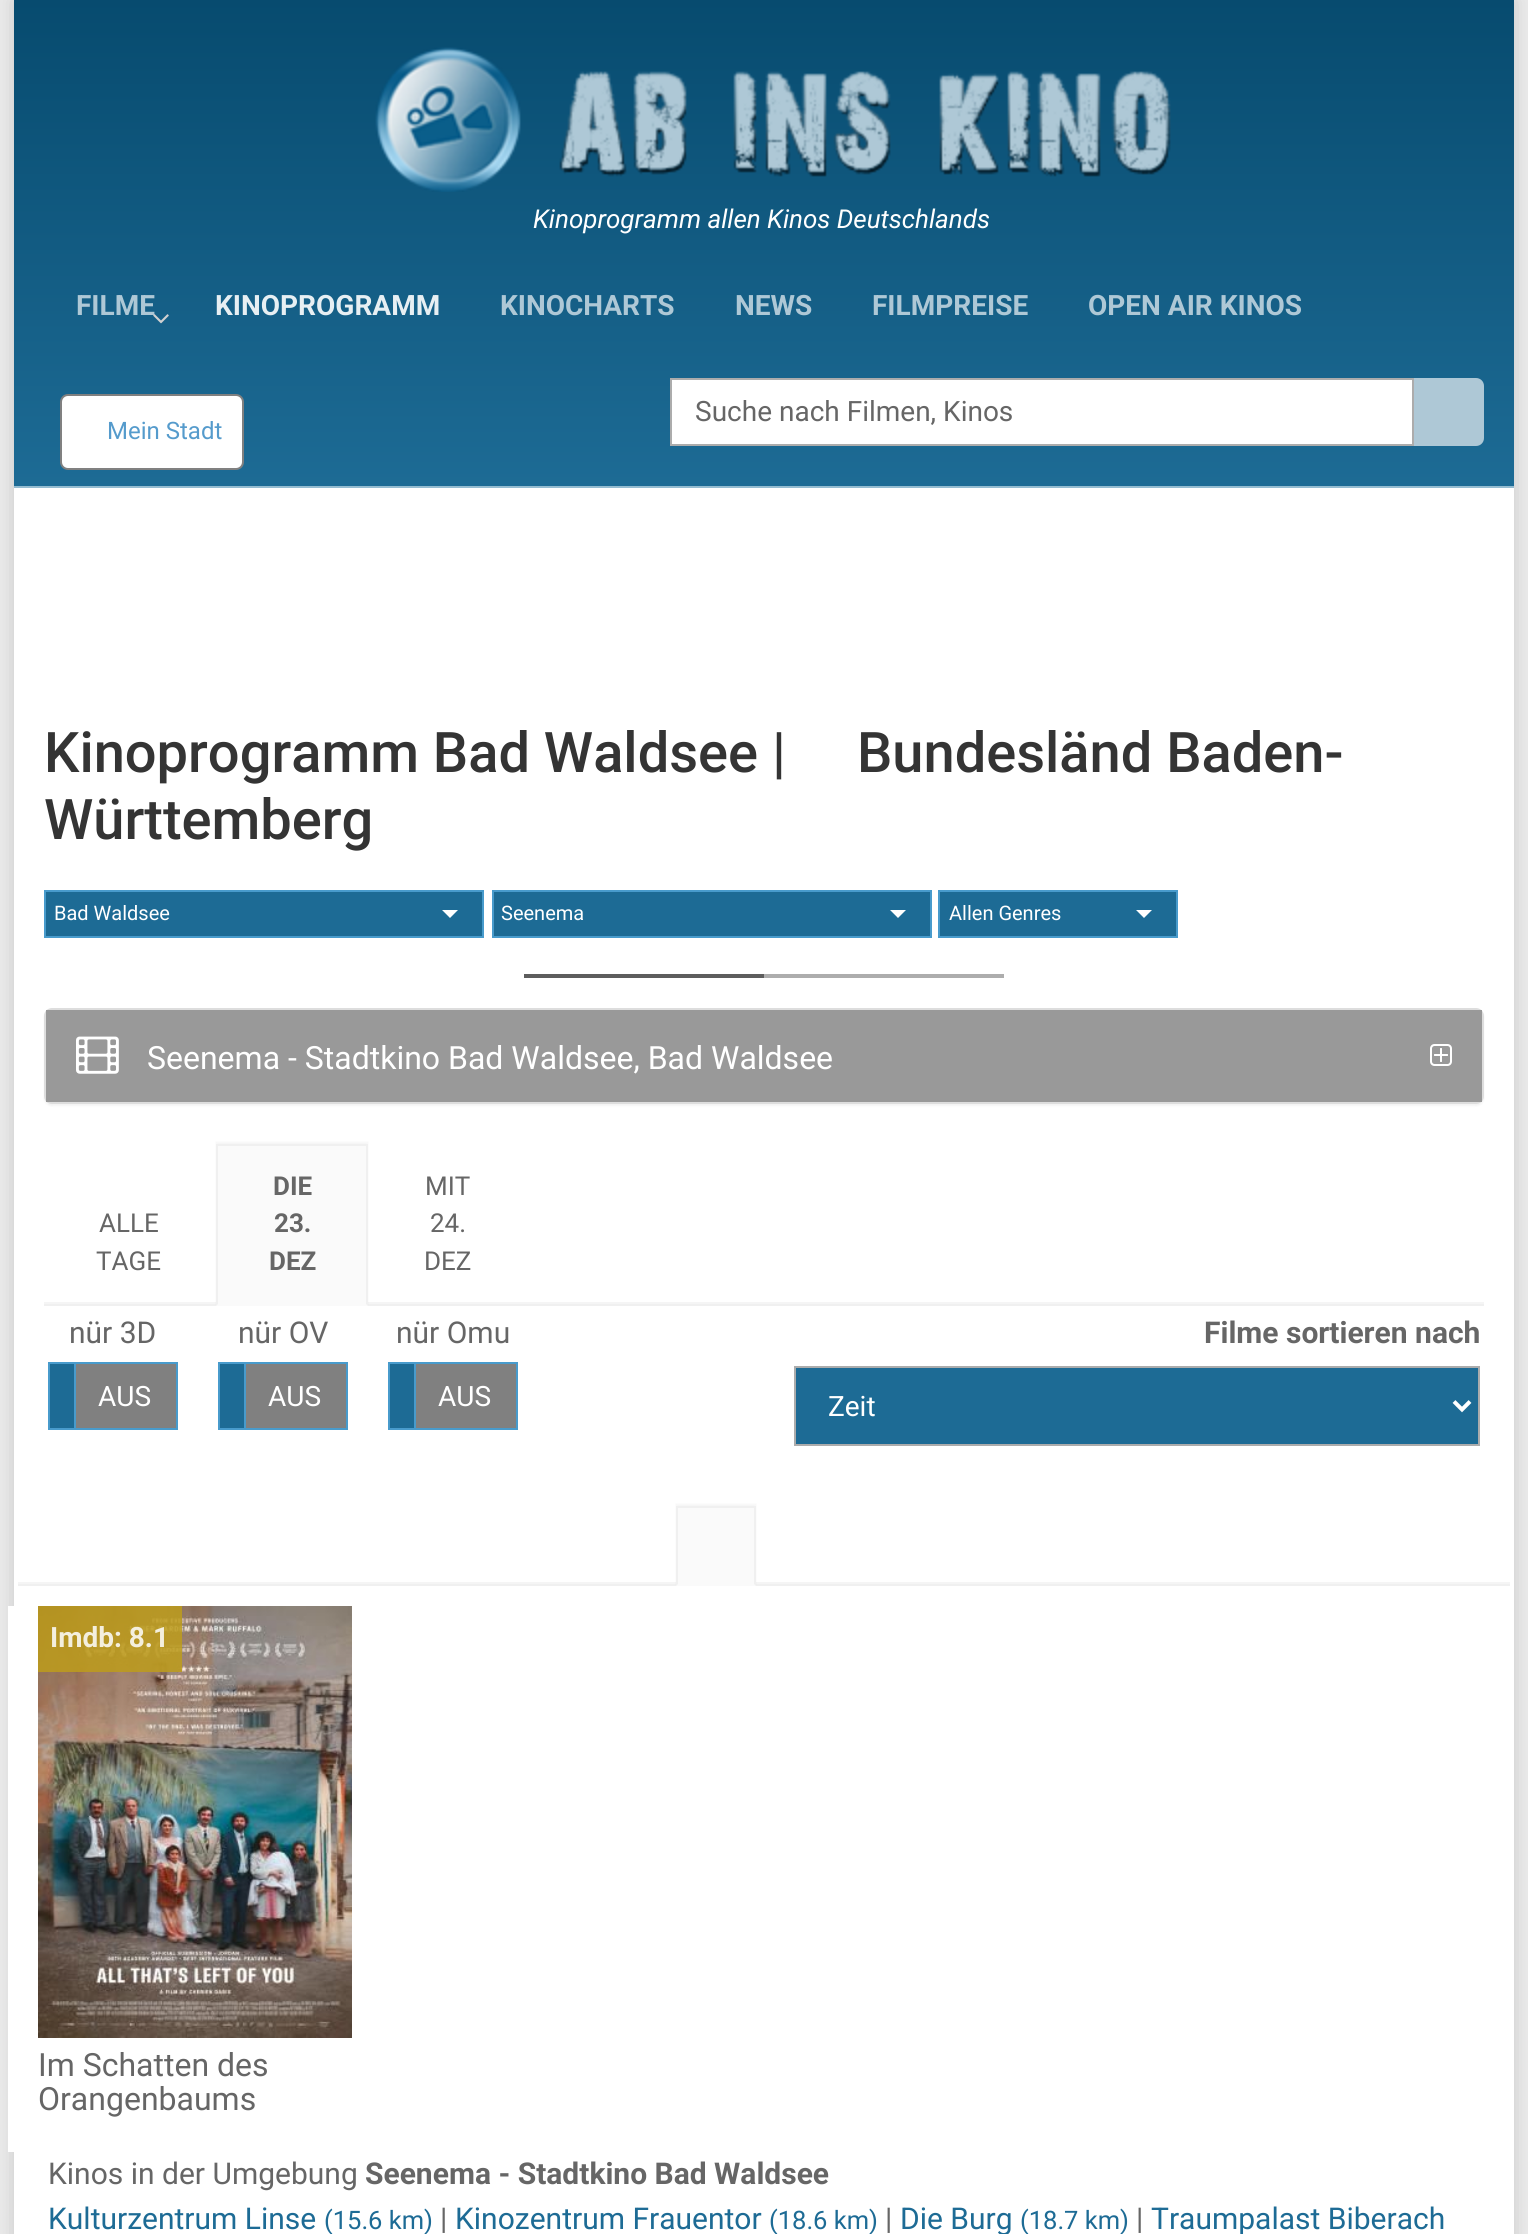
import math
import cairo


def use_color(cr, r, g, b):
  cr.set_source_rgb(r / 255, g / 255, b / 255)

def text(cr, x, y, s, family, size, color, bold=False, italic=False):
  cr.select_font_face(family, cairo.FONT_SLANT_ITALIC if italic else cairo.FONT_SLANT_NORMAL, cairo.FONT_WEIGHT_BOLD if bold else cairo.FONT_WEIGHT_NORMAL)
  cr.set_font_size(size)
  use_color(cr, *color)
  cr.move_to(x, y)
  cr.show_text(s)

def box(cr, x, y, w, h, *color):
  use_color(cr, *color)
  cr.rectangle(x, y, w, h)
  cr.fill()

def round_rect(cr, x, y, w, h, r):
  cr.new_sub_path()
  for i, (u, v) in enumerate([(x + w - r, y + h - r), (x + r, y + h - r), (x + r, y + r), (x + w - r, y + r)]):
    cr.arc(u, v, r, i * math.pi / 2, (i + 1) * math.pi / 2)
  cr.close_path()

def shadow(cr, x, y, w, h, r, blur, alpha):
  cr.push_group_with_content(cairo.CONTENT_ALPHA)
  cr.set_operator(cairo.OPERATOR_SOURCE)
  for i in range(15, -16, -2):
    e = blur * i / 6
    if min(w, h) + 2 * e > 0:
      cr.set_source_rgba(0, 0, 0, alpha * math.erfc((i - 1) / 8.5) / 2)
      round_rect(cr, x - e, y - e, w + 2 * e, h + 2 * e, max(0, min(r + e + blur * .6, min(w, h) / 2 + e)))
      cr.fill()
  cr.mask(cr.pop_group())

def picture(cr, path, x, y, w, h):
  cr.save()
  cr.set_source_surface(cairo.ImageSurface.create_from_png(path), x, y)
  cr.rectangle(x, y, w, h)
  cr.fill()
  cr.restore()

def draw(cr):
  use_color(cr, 235, 235, 235)
  cr.paint()
  use_color(cr, 202, 202, 202)
  shadow(cr, 14, 0, 1500, 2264, 0, 10, 1)
  box(cr, 14, 488, 1500, 1746, 255, 255, 255)
  gradient = cairo.LinearGradient(764, 0, 764, 486)
  gradient.add_color_stop_rgba(0, 0.027, 0.294, 0.435, 1)
  gradient.add_color_stop_rgba(1, 0.114, 0.42, 0.584, 1)
  cr.set_source(gradient)
  cr.rectangle(14, 0, 1500, 486)
  cr.fill()
  box(cr, 14, 486, 1500, 2, 148, 188, 209)
  picture(cr, "img_01.png", 375, 47, 796, 145)
  use_color(cr, 255, 255, 255)
  cr.rectangle(671, 379, 742, 66)
  cr.fill_preserve()
  use_color(cr, 172, 172, 172)
  cr.stroke()
  use_color(cr, 174, 200, 214)
  cr.new_path()
  cr.move_to(1414, 378)
  cr.line_to(1476, 378)
  cr.curve_to(1480.5, 378, 1484, 381.5, 1484, 386)
  cr.line_to(1484, 438)
  cr.curve_to(1484, 442.5, 1480.5, 446, 1476, 446)
  cr.line_to(1414, 446)
  cr.close_path()
  cr.fill()
  use_color(cr, 255, 255, 255)
  round_rect(cr, 61, 395, 182, 74, 7)
  cr.fill_preserve()
  use_color(cr, 128, 128, 128)
  cr.stroke()
  use_color(cr, 29, 107, 149)
  cr.rectangle(45, 891, 438, 46)
  cr.fill_preserve()
  use_color(cr, 72, 155, 204)
  cr.stroke()
  use_color(cr, 255, 255, 255)
  cr.new_path()
  cr.move_to(442, 910)
  cr.line_to(458, 910)
  cr.line_to(450, 918)
  cr.close_path()
  cr.fill()
  use_color(cr, 29, 107, 149)
  cr.rectangle(493, 891, 438, 46)
  cr.fill_preserve()
  use_color(cr, 72, 155, 204)
  cr.stroke()
  use_color(cr, 255, 255, 255)
  cr.new_path()
  cr.move_to(890, 910)
  cr.line_to(906, 910)
  cr.line_to(898, 918)
  cr.close_path()
  cr.fill()
  use_color(cr, 29, 107, 149)
  cr.rectangle(939, 891, 238, 46)
  cr.fill_preserve()
  use_color(cr, 72, 155, 204)
  cr.stroke()
  use_color(cr, 255, 255, 255)
  cr.new_path()
  cr.move_to(1136, 910)
  cr.line_to(1152, 910)
  cr.line_to(1144, 918)
  cr.close_path()
  cr.fill()
  box(cr, 764, 974, 240, 4, 173, 173, 173)
  box(cr, 524, 974, 240, 4, 93, 93, 93)
  use_color(cr, 0, 0, 0)
  shadow(cr, 44, 1010, 1440, 96, 8, 1, 0.05)
  round_rect(cr, 45, 1009, 1438, 94, 7)
  use_color(cr, 221, 221, 221)
  cr.stroke()
  box(cr, 46, 1010, 1436, 92, 153, 153, 153)
  picture(cr, "img_03.png", 76, 1036, 43, 38)
  picture(cr, "img_04.png", 1430, 1044, 22, 22)
  box(cr, 44, 1302, 1440, 2, 245, 245, 245)
  box(cr, 44, 1304, 1440, 2, 240, 240, 240)
  use_color(cr, 0, 0, 0)
  shadow(cr, 216, 1142, 152, 162, 0, 1, 0.04)
  box(cr, 216, 1146, 152, 160, 250, 250, 250)
  box(cr, 216, 1144, 152, 2, 240, 240, 240)
  cr.new_path()
  cr.move_to(368, 1144)
  cr.line_to(368, 1306)
  cr.line_to(366, 1304)
  cr.line_to(366, 1146)
  cr.close_path()
  cr.fill()
  cr.new_path()
  cr.move_to(216, 1306)
  cr.line_to(216, 1144)
  cr.line_to(218, 1146)
  cr.line_to(218, 1304)
  cr.close_path()
  cr.fill()
  cr.rectangle(49, 1363, 128, 66)
  use_color(cr, 72, 155, 204)
  cr.stroke()
  box(cr, 50, 1364, 24, 64, 29, 107, 149)
  box(cr, 74, 1364, 2, 64, 72, 155, 204)
  box(cr, 76, 1364, 100, 64, 128, 128, 128)
  cr.rectangle(219, 1363, 128, 66)
  use_color(cr, 72, 155, 204)
  cr.stroke()
  box(cr, 220, 1364, 24, 64, 29, 107, 149)
  box(cr, 244, 1364, 2, 64, 72, 155, 204)
  box(cr, 246, 1364, 100, 64, 128, 128, 128)
  cr.rectangle(389, 1363, 128, 66)
  use_color(cr, 72, 155, 204)
  cr.stroke()
  box(cr, 390, 1364, 24, 64, 29, 107, 149)
  box(cr, 414, 1364, 2, 64, 72, 155, 204)
  box(cr, 416, 1364, 100, 64, 128, 128, 128)
  use_color(cr, 29, 107, 149)
  cr.rectangle(795, 1367, 684, 78)
  cr.fill_preserve()
  use_color(cr, 172, 172, 172)
  cr.stroke()
  cr.new_path()
  cr.move_to(1454, 1401.5)
  cr.line_to(1462, 1409.5)
  cr.line_to(1470, 1401.5)
  use_color(cr, 255, 255, 255)
  cr.set_line_width(4)
  cr.stroke()
  cr.set_source_rgba(0, 0, 0, 0.04)
  cr.rectangle(18, 1582, 1492, 2)
  cr.fill()
  box(cr, 18, 1584, 1492, 2, 240, 240, 240)
  use_color(cr, 0, 0, 0)
  shadow(cr, 676, 1504, 80, 80, 0, 1, 0.04)
  box(cr, 676, 1508, 80, 78, 250, 250, 250)
  box(cr, 676, 1506, 80, 2, 240, 240, 240)
  cr.new_path()
  cr.move_to(756, 1506)
  cr.line_to(756, 1586)
  cr.line_to(754, 1584)
  cr.line_to(754, 1508)
  cr.close_path()
  cr.fill()
  cr.new_path()
  cr.move_to(676, 1586)
  cr.line_to(676, 1506)
  cr.line_to(678, 1508)
  cr.line_to(678, 1584)
  cr.close_path()
  cr.fill()
  box(cr, 8, 1606, 6, 546, 255, 255, 255)
  picture(cr, "img_05.png", 38, 1606, 314, 432)
  cr.set_source_rgba(0.741, 0.612, 0.106, 0.85)
  cr.rectangle(38, 1606, 144, 66)
  cr.fill()
  text(cr, 533, 228, "Kinoprogramm allen Kinos Deutschlands", "Roboto", 26, (255, 255, 255), italic=True)
  text(cr, 76, 315, "FILME", "Roboto", 28, (174, 200, 214), bold=True)
  picture(cr, "img_02.png", 153, 314, 16, 10)
  text(cr, 215, 315, "KINOPROGRAMM", "Roboto", 28, (231, 239, 243), bold=True)
  text(cr, 500, 315, "KINOCHARTS", "Roboto", 28, (174, 200, 214), bold=True)
  text(cr, 735, 315, "NEWS", "Roboto", 28, (174, 200, 214), bold=True)
  text(cr, 872, 315, "FILMPREISE", "Roboto", 28, (174, 200, 214), bold=True)
  text(cr, 1088, 315, "OPEN AIR KINOS", "Roboto", 28, (174, 200, 214), bold=True)
  text(cr, 695, 421, "Suche nach Filmen, Kinos", "Roboto", 28, (102, 102, 102))
  text(cr, 107, 439, "Mein Stadt", "Roboto", 24, (85, 155, 204))
  text(cr, 44, 772, "Kinoprogramm Bad Waldsee |", "Roboto Medium", 56, (52, 52, 52))
  text(cr, 857, 772, "Bundesländ Baden-", "Roboto Medium", 56, (52, 52, 52))
  text(cr, 44, 839, "Württemberg", "Roboto Medium", 56, (52, 52, 52))
  text(cr, 54, 920, "Bad Waldsee", "Roboto", 20, (255, 255, 255))
  text(cr, 501, 920, "Seenema", "Roboto", 20, (255, 255, 255))
  text(cr, 949, 920, "Allen Genres", "Roboto", 20, (255, 255, 255))
  text(cr, 147, 1069, "Seenema - Stadtkino Bad Waldsee, Bad Waldsee", "Roboto", 32, (255, 255, 255))
  text(cr, 99, 1232, "ALLE", "Roboto", 26, (102, 102, 102))
  text(cr, 96, 1270, "TAGE", "Roboto", 26, (102, 102, 102))
  text(cr, 273, 1195, "DIE", "Roboto", 26, (102, 102, 102), bold=True)
  text(cr, 274, 1232, "23.", "Roboto", 26, (102, 102, 102), bold=True)
  text(cr, 269, 1270, "DEZ", "Roboto", 26, (102, 102, 102), bold=True)
  text(cr, 425, 1195, "MIT", "Roboto", 26, (102, 102, 102))
  text(cr, 430, 1232, "24.", "Roboto", 26, (102, 102, 102))
  text(cr, 424, 1270, "DEZ", "Roboto", 26, (102, 102, 102))
  text(cr, 69, 1343, "nür 3D", "Roboto", 30, (102, 102, 102))
  text(cr, 98, 1406, "AUS", "Roboto", 28, (255, 255, 255))
  text(cr, 238, 1343, "nür OV", "Roboto", 30, (102, 102, 102))
  text(cr, 268, 1406, "AUS", "Roboto", 28, (255, 255, 255))
  text(cr, 396, 1343, "nür Omu", "Roboto", 30, (102, 102, 102))
  text(cr, 438, 1406, "AUS", "Roboto", 28, (255, 255, 255))
  text(cr, 1204, 1343, "Filme sortieren nach", "Roboto", 30, (102, 102, 102), bold=True)
  text(cr, 828, 1416, "Zeit", "Roboto", 28, (255, 255, 255))
  text(cr, 50, 1647, "Imdb: 8.1", "Roboto", 28, (244, 239, 222), bold=True)
  text(cr, 38, 2076, "Im Schatten des", "Roboto", 32, (102, 102, 102))
  text(cr, 38, 2110, "Orangenbaums", "Roboto", 32, (102, 102, 102))
  text(cr, 48, 2184, "Kinos in der Umgebung", "Roboto", 30, (102, 102, 102))
  text(cr, 365, 2184, "Seenema - Stadtkino Bad Waldsee", "Roboto", 30, (102, 102, 102), bold=True)
  text(cr, 48, 2229, "Kulturzentrum Linse", "Roboto", 30, (29, 107, 149))
  text(cr, 324, 2229, "(15.6 km)", "Roboto", 25.5, (29, 107, 149))
  text(cr, 440, 2229, "|", "Roboto", 30, (102, 102, 102))
  text(cr, 455, 2229, "Kinozentrum Frauentor", "Roboto", 30, (29, 107, 149))
  text(cr, 769, 2229, "(18.6 km)", "Roboto", 25.5, (29, 107, 149))
  text(cr, 885, 2229, "|", "Roboto", 30, (102, 102, 102))
  text(cr, 900, 2229, "Die Burg", "Roboto", 30, (29, 107, 149))
  text(cr, 1020, 2229, "(18.7 km)", "Roboto", 25.5, (29, 107, 149))
  text(cr, 1136, 2229, "|", "Roboto", 30, (102, 102, 102))
  text(cr, 1151, 2229, "Traumpalast Biberach", "Roboto", 30, (29, 107, 149))


surface = cairo.ImageSurface(cairo.FORMAT_RGB24, 1528, 2234)
cr = cairo.Context(surface)
options = cairo.FontOptions()
options.set_hint_metrics(cairo.HINT_METRICS_OFF)
options.set_hint_style(cairo.HINT_STYLE_NONE)
cr.set_font_options(options)
cr.set_miter_limit(4)
draw(cr)
surface.write_to_png("out.png")
